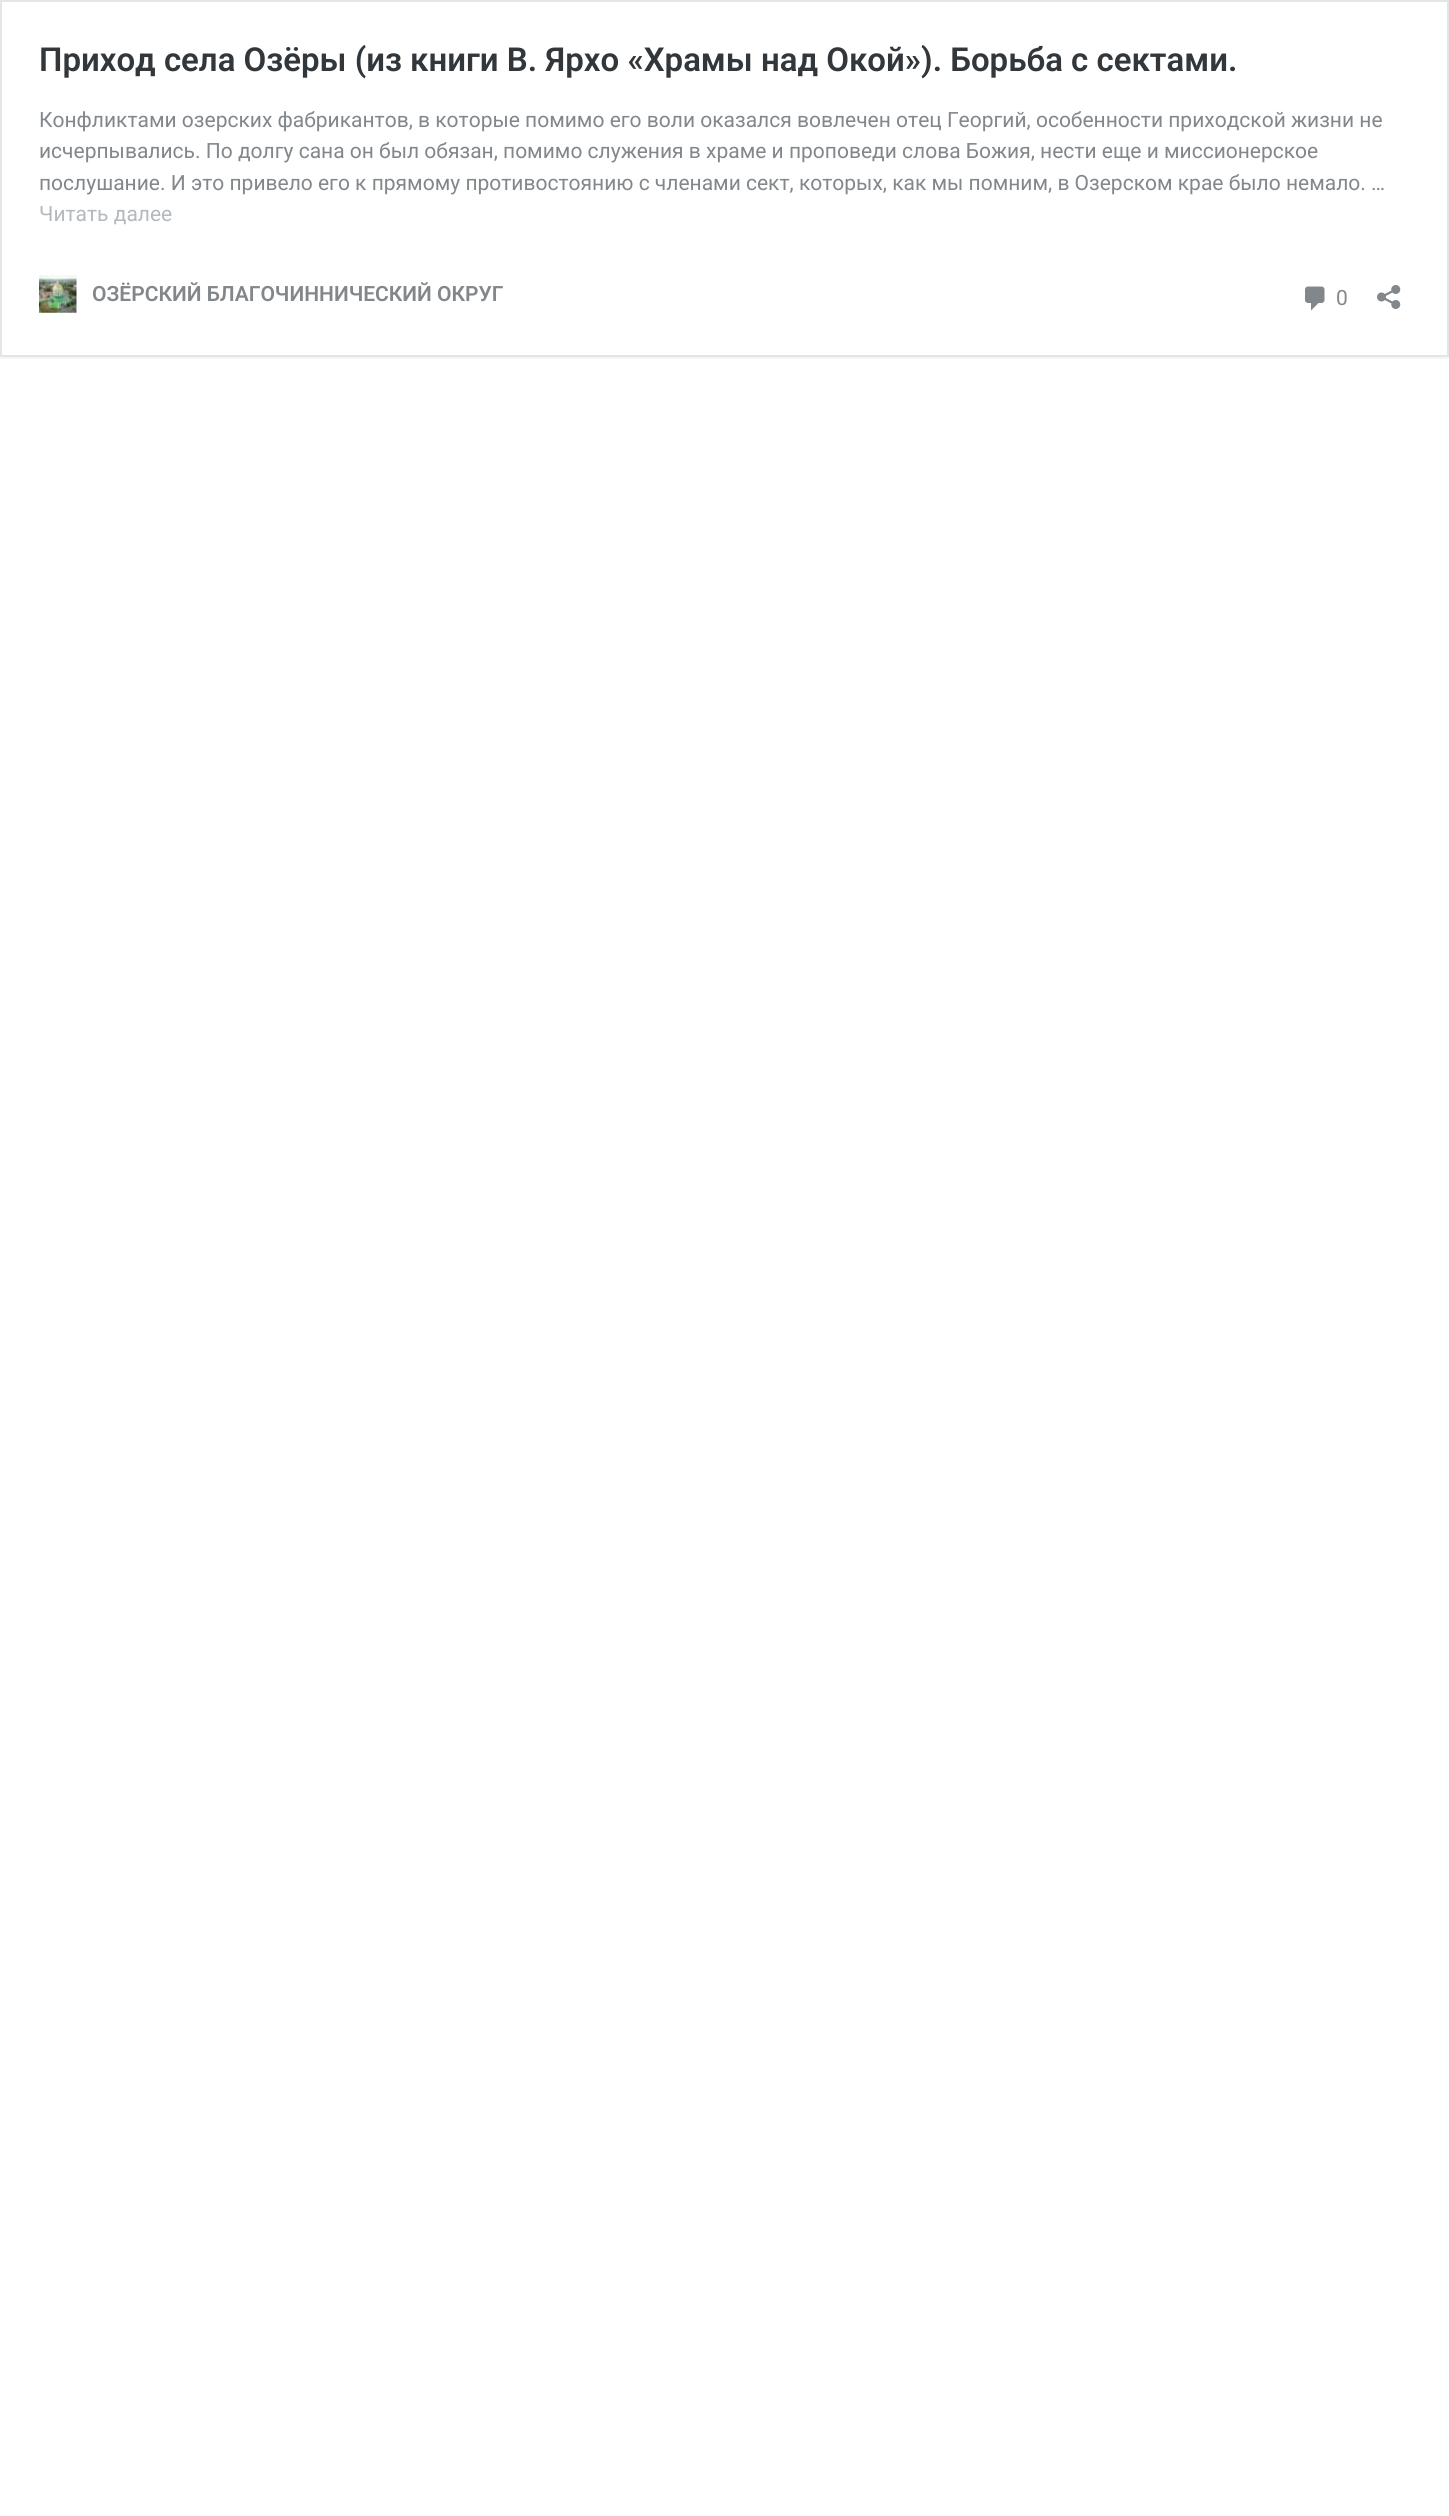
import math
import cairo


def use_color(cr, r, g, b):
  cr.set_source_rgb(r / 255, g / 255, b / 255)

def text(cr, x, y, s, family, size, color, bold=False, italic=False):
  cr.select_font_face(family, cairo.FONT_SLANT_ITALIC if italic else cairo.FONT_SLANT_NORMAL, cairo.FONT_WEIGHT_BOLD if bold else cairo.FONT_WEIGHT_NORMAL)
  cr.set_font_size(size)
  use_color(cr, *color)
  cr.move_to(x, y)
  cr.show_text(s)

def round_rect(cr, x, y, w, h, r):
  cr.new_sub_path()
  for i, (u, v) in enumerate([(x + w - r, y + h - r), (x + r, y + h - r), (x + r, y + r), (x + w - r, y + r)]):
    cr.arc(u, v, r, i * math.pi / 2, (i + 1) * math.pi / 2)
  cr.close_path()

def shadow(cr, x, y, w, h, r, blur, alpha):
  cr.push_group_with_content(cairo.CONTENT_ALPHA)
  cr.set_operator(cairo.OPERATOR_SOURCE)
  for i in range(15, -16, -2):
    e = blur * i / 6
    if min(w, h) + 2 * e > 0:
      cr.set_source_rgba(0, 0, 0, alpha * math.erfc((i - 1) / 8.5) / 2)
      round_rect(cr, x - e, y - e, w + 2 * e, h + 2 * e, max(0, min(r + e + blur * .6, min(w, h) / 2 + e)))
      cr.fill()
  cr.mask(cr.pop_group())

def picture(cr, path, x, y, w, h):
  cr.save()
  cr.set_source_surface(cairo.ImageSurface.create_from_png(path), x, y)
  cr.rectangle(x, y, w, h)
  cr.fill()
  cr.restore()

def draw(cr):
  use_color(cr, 255, 255, 255)
  cr.paint()
  cr.save()
  cr.rectangle(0, 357, 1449, 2)
  cr.clip()
  use_color(cr, 0, 0, 0)
  shadow(cr, 0, 2, 1449, 357, 0, 1, 0.05)
  cr.restore()
  cr.rectangle(1, 1, 1447, 355)
  use_color(cr, 229, 229, 229)
  cr.stroke()
  picture(cr, "img_01.png", 39, 275, 38, 38)
  picture(cr, "img_02.png", 1305, 286, 20, 25)
  picture(cr, "img_03.png", 1377, 285, 24, 24)
  text(cr, 39, 71, "Приход села Озёры (из книги В. Ярхо «Храмы над Окой»). Борьба с сектами.", "Roboto SemiBold", 33, (50, 55, 60))
  text(cr, 39, 127, "Конфликтами озерских фабрикантов, в которые помимо его воли оказался вовлечен отец Георгий, особенности приходской жизни не", "Roboto", 21, (130, 135, 140))
  text(cr, 39, 158, "исчерпывались. По долгу сана он был обязан, помимо служения в храме и проповеди слова Божия, нести еще и миссионерское", "Roboto", 21, (130, 135, 140))
  text(cr, 39, 190, "послушание. И это привело его к прямому противостоянию с членами сект, которых, как мы помним, в Озерском крае было немало. …", "Roboto", 21, (130, 135, 140))
  text(cr, 39, 221, "Читать далее", "Roboto", 21, (180, 185, 190))
  text(cr, 92, 301, "ОЗЁРСКИЙ БЛАГОЧИННИЧЕСКИЙ ОКРУГ", "Roboto SemiBold", 21, (130, 135, 140))
  text(cr, 1336, 305, "0", "Roboto", 21, (130, 135, 140))


surface = cairo.ImageSurface(cairo.FORMAT_RGB24, 1449, 2516)
cr = cairo.Context(surface)
options = cairo.FontOptions()
options.set_hint_metrics(cairo.HINT_METRICS_OFF)
options.set_hint_style(cairo.HINT_STYLE_NONE)
cr.set_font_options(options)
cr.set_miter_limit(4)
draw(cr)
surface.write_to_png("out.png")
